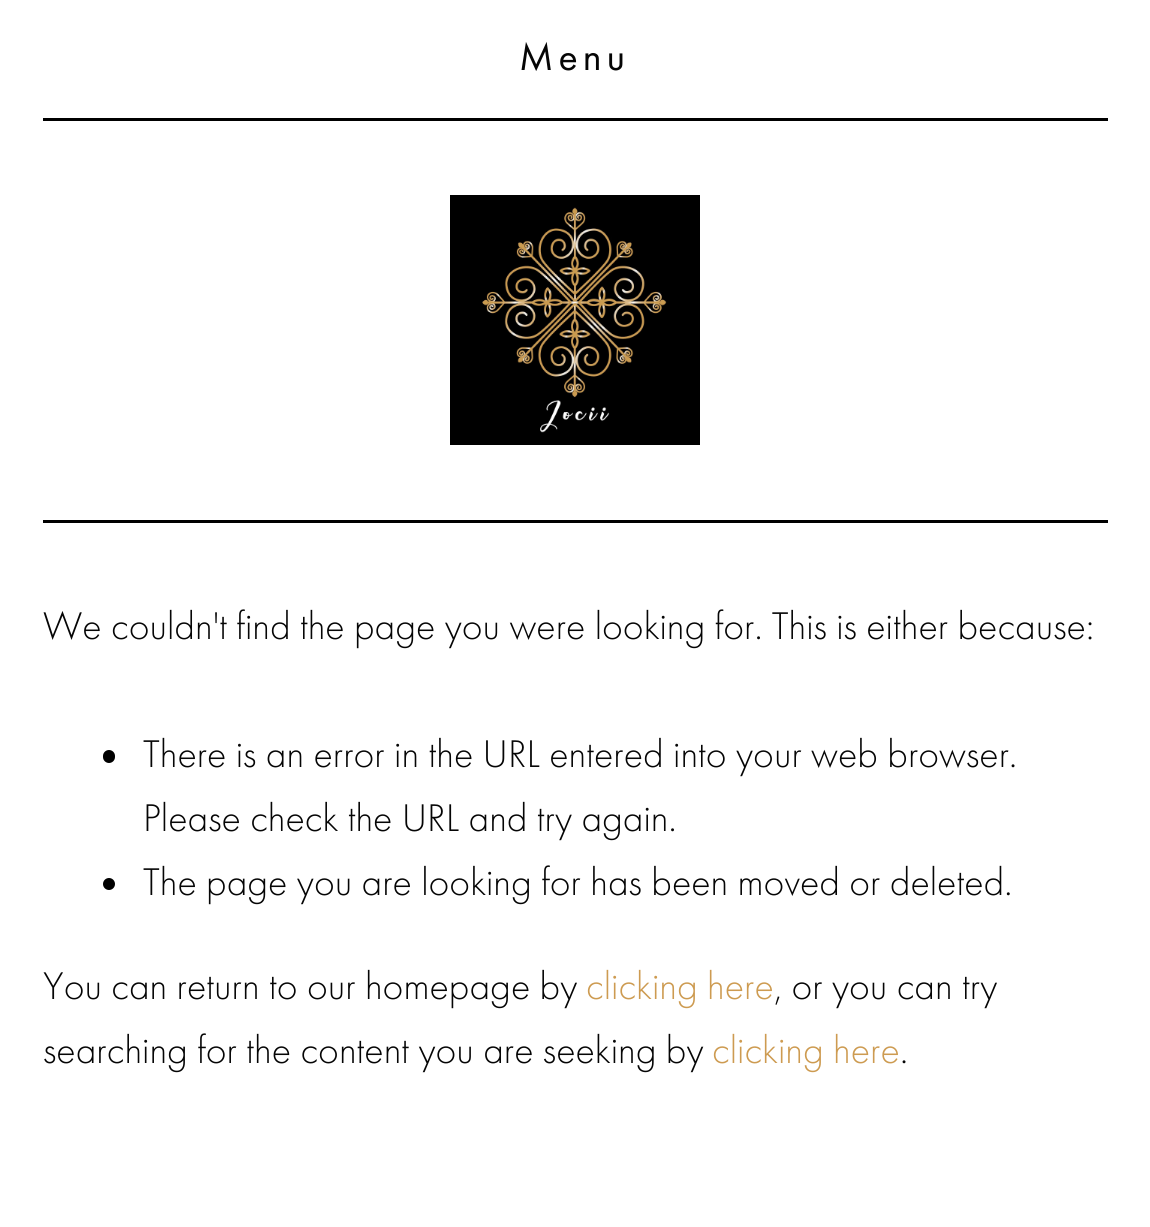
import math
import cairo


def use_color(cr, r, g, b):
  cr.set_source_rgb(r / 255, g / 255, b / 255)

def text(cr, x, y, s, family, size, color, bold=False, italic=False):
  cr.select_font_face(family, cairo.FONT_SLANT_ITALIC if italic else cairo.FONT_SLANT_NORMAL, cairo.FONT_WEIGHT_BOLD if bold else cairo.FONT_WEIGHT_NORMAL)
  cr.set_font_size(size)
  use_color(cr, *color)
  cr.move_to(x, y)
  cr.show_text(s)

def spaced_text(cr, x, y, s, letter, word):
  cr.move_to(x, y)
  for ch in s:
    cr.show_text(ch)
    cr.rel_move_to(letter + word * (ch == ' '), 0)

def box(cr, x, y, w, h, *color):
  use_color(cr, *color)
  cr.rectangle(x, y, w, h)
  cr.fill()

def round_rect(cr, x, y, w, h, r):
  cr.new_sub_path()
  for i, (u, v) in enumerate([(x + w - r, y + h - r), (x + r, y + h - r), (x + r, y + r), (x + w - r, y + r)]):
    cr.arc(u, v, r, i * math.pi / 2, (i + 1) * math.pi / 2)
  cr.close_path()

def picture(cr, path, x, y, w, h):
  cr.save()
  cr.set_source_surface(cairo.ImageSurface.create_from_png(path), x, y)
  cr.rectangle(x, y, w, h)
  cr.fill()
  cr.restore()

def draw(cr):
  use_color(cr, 255, 255, 255)
  cr.paint()
  box(cr, 43, 118, 1065, 3, 0, 0, 0)
  picture(cr, "img_01.png", 450, 195, 250, 250)
  box(cr, 43, 520, 1065, 3, 0, 0, 0)
  round_rect(cr, 103, 750, 12, 13, 6)
  cr.fill()
  cr.arc(109, 884, 6, 0, 2 * math.pi)
  cr.fill()
  cr.select_font_face("Futura PT")
  cr.set_font_size(40)
  use_color(cr, 5, 5, 5)
  spaced_text(cr, 519, 70, "Menu", 5, 0)
  text(cr, 43, 639, "We couldn't find the page you were looking for. This is either because:", "Futura PT Light", 40, (5, 5, 5))
  text(cr, 143, 767, "There is an error in the URL entered into your web browser.", "Futura PT Light", 40, (5, 5, 5))
  text(cr, 143, 831, "Please check the URL and try again.", "Futura PT Light", 40, (5, 5, 5))
  text(cr, 143, 895, "The page you are looking for has been moved or deleted.", "Futura PT Light", 40, (5, 5, 5))
  text(cr, 43, 999, "You can return to our homepage by", "Futura PT Light", 40, (5, 5, 5))
  text(cr, 586, 999, "clicking here", "Futura PT Light", 40, (205, 155, 81))
  text(cr, 774, 999, ", or you can try", "Futura PT Light", 40, (5, 5, 5))
  text(cr, 43, 1063, "searching for the content you are seeking by", "Futura PT Light", 40, (5, 5, 5))
  text(cr, 712, 1063, "clicking here", "Futura PT Light", 40, (205, 155, 81))
  text(cr, 900, 1063, ".", "Futura PT Light", 40, (5, 5, 5))


surface = cairo.ImageSurface(cairo.FORMAT_RGB24, 1150, 1227)
cr = cairo.Context(surface)
options = cairo.FontOptions()
options.set_hint_metrics(cairo.HINT_METRICS_OFF)
options.set_hint_style(cairo.HINT_STYLE_NONE)
cr.set_font_options(options)
cr.set_miter_limit(4)
draw(cr)
surface.write_to_png("out.png")
